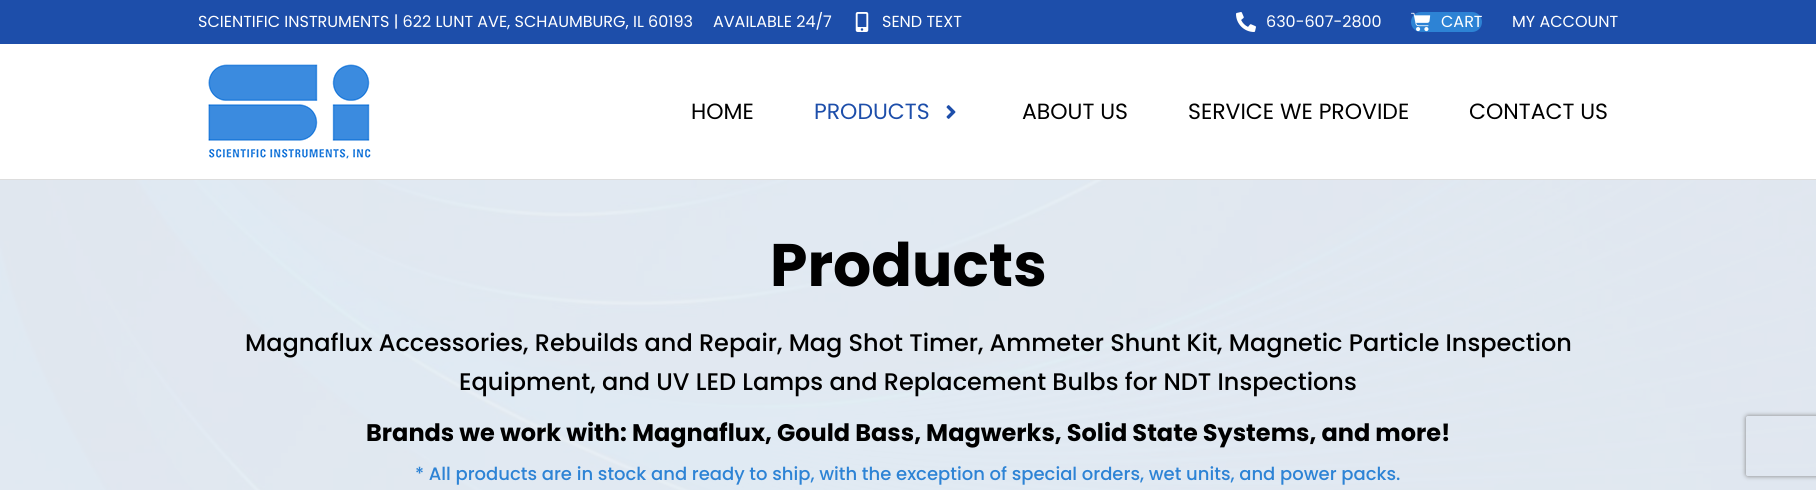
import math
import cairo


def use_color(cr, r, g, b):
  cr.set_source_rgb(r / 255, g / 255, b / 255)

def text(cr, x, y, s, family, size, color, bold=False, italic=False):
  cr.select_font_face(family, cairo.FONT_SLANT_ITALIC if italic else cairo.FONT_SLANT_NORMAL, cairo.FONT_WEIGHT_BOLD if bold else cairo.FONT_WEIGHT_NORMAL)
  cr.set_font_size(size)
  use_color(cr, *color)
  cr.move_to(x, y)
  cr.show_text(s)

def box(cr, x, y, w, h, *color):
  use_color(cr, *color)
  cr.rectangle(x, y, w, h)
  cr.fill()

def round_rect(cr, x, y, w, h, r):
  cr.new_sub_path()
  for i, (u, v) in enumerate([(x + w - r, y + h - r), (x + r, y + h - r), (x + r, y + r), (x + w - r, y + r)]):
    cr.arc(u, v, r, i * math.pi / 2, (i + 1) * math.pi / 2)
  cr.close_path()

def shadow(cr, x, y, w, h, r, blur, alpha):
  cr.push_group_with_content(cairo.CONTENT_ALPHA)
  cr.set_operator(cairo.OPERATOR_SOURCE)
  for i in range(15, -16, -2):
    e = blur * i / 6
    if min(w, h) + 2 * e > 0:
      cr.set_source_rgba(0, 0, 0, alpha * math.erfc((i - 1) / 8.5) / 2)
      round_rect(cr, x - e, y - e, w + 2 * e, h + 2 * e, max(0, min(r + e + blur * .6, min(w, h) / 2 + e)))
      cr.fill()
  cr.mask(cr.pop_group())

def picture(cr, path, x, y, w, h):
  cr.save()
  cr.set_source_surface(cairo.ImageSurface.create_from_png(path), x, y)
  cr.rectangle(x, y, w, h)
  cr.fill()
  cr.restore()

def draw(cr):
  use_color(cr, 255, 255, 255)
  cr.paint()
  box(cr, 0, 0, 1816, 44, 29, 78, 170)
  picture(cr, "img_01.png", 855, 12, 14, 20)
  picture(cr, "img_02.png", 1236, 12, 20, 20)
  use_color(cr, 45, 131, 213)
  round_rect(cr, 1411, 12, 71, 20, 10)
  cr.fill()
  picture(cr, "img_03.png", 1411, 12, 20, 20)
  box(cr, 0, 179, 1816, 1, 221, 221, 221)
  picture(cr, "img_04.png", 208, 64, 163, 95)
  picture(cr, "img_05.png", 946, 105, 10, 14)
  picture(cr, "img_06.png", 0, 180, 1816, 310)
  cr.save()
  cr.set_fill_rule(cairo.FILL_RULE_EVEN_ODD)
  cr.new_path()
  cr.move_to(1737, 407)
  cr.line_to(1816, 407)
  cr.line_to(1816, 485)
  cr.line_to(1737, 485)
  cr.close_path()
  cr.move_to(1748, 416)
  cr.line_to(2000, 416)
  cr.curve_to(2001, 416, 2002, 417, 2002, 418)
  cr.line_to(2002, 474)
  cr.curve_to(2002, 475, 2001, 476, 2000, 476)
  cr.line_to(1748, 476)
  cr.curve_to(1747, 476, 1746, 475, 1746, 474)
  cr.line_to(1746, 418)
  cr.curve_to(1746, 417, 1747, 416, 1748, 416)
  cr.close_path()
  cr.clip()
  use_color(cr, 128, 128, 128)
  shadow(cr, 1746, 416, 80, 60, 2, 2.5, 1)
  cr.restore()
  text(cr, 198, 27, "SCIENTIFIC INSTRUMENTS | 622 LUNT AVE, SCHAUMBURG, IL 60193", "Poppins", 16, (255, 255, 255))
  text(cr, 713, 27, "AVAILABLE 24/7", "Poppins", 16, (255, 255, 255))
  text(cr, 882, 27, "SEND TEXT", "Poppins", 16, (255, 255, 255))
  text(cr, 1266, 27, "630-607-2800", "Poppins", 16, (255, 255, 255))
  text(cr, 1441, 27, "CART", "Poppins", 16, (255, 255, 255))
  text(cr, 1512, 27, "MY ACCOUNT", "Poppins", 16, (255, 255, 255))
  text(cr, 691, 119, "HOME", "Poppins", 22, (0, 0, 0))
  text(cr, 814, 119, "PRODUCTS", "Poppins", 22, (29, 78, 170))
  text(cr, 1022, 119, "ABOUT US", "Poppins", 22, (0, 0, 0))
  text(cr, 1188, 119, "SERVICE WE PROVIDE", "Poppins", 22, (0, 0, 0))
  text(cr, 1469, 119, "CONTACT US", "Poppins", 22, (0, 0, 0))
  text(cr, 770, 286, "Products", "Poppins", 60, (0, 0, 0), bold=True)
  text(cr, 245, 351, "Magnaflux Accessories, Rebuilds and Repair, Mag Shot Timer, Ammeter Shunt Kit, Magnetic Particle Inspection", "Poppins Medium", 24, (0, 0, 0))
  text(cr, 459, 390, "Equipment, and UV LED Lamps and Replacement Bulbs for NDT Inspections", "Poppins Medium", 24, (0, 0, 0))
  text(cr, 366, 441, "Brands we work with: Magnaflux, Gould Bass, Magwerks, Solid State Systems, and more!", "Poppins", 24, (0, 0, 0), bold=True)
  text(cr, 415, 480, "* All products are in stock and ready to ship, with the exception of special orders, wet units, and power packs.", "Poppins Medium", 18, (45, 131, 213))


surface = cairo.ImageSurface(cairo.FORMAT_RGB24, 1816, 490)
cr = cairo.Context(surface)
options = cairo.FontOptions()
options.set_hint_metrics(cairo.HINT_METRICS_OFF)
options.set_hint_style(cairo.HINT_STYLE_NONE)
cr.set_font_options(options)
cr.set_miter_limit(4)
draw(cr)
surface.write_to_png("out.png")
